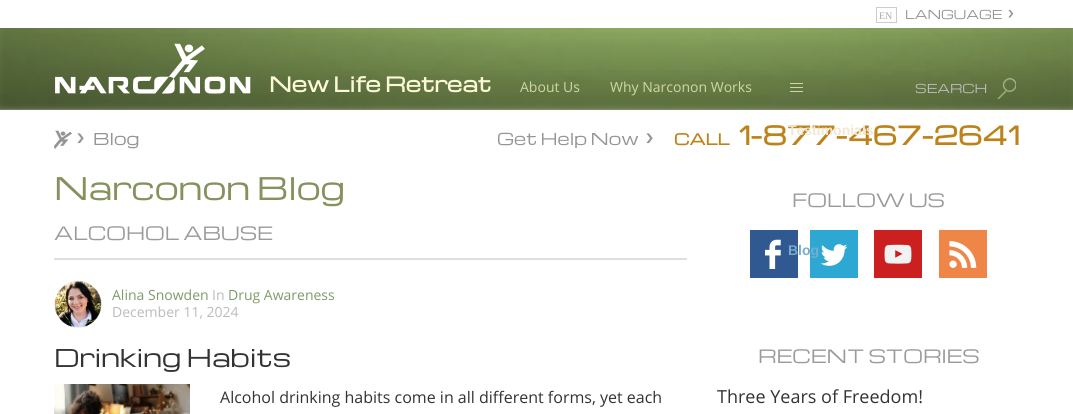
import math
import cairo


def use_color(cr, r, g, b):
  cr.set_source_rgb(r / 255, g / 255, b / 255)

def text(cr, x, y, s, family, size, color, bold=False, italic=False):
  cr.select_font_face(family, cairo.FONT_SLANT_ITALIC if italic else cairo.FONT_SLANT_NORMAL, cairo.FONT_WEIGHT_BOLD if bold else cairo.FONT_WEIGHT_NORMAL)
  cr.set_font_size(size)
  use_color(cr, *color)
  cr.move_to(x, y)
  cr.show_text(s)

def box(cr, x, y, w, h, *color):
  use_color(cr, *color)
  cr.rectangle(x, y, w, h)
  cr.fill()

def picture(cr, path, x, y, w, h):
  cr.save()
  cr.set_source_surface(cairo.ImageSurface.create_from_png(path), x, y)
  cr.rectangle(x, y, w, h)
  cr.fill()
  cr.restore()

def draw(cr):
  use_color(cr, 255, 255, 255)
  cr.paint()
  picture(cr, "img_01.png", 0, 28, 1073, 82)
  cr.rectangle(876.5, 7.5, 20, 15)
  use_color(cr, 204, 204, 204)
  cr.set_line_width(1)
  cr.stroke()
  picture(cr, "img_02.png", 55, 43, 196, 51)
  cr.save()
  cr.rectangle(996, 78, 20, 20)
  cr.clip()
  cr.new_path()
  cr.move_to(1005.5, 89.5)
  cr.curve_to(999.5, 83.5, 1008.5, 75, 1014, 80.5)
  cr.curve_to(1020, 86.5, 1011, 95, 1005.5, 89.5)
  cr.set_source_rgba(0.8, 0.847, 0.651, 0.6)
  cr.set_line_width(1.5)
  cr.set_line_cap(cairo.LINE_CAP_ROUND)
  cr.stroke()
  cr.restore()
  cr.new_path()
  cr.move_to(1005.5, 91.5)
  cr.line_to(998.5, 98.5)
  cr.set_source_rgba(0.8, 0.847, 0.651, 0.6)
  cr.set_line_width(1.5)
  cr.set_line_cap(cairo.LINE_CAP_ROUND)
  cr.stroke()
  box(cr, 790, 83, 13, 1, 204, 216, 166)
  box(cr, 790, 87, 13, 1, 204, 216, 166)
  box(cr, 790, 91, 13, 1, 204, 216, 166)
  picture(cr, "img_03.png", 54, 130, 18, 19)
  box(cr, 54, 258, 633, 2, 219, 223, 228)
  picture(cr, "img_04.png", 54, 280, 48, 48)
  picture(cr, "img_05.png", 54, 384, 136, 30)
  box(cr, 750, 230, 48, 48, 48, 88, 145)
  picture(cr, "img_06.png", 765, 239, 16, 30)
  box(cr, 810, 230, 48, 48, 44, 168, 210)
  picture(cr, "img_07.png", 821, 244, 27, 22)
  box(cr, 874, 230, 48, 48, 204, 31, 31)
  picture(cr, "img_08.png", 884, 244, 28, 20)
  box(cr, 939, 230, 48, 48, 239, 134, 71)
  picture(cr, "img_09.png", 949, 241, 28, 27)
  text(cr, 879, 19, "EN", "Liberation Serif", 10, (170, 170, 170))
  text(cr, 905, 19, "LANGUAGE", "Michroma", 12, (149, 149, 149))
  text(cr, 1008, 19, "❯", "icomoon", 11, (149, 149, 149))
  text(cr, 269, 92, "New Life Retreat", "Michroma", 20, (250, 248, 214), bold=True)
  text(cr, 520, 92, "About Us", "Open Sans", 14, (204, 216, 166))
  text(cr, 610, 92, "Why Narconon Works", "Open Sans", 14, (204, 216, 166))
  text(cr, 915, 93, "SEARCH", "Michroma", 12, (187, 187, 187))
  text(cr, 788, 255, "Blog", "Liberation Sans", 14, (119, 172, 204), bold=True)
  text(cr, 77, 145, "❯", "icomoon", 14, (149, 149, 149))
  text(cr, 93, 145, "Blog", "Michroma", 16, (149, 149, 149))
  text(cr, 497, 145, "Get Help Now", "Michroma", 16, (149, 149, 149))
  text(cr, 646, 145, "❯", "icomoon", 14, (149, 149, 149))
  text(cr, 674, 145, "CALL", "Michroma", 15, (189, 131, 26), bold=True)
  text(cr, 738, 145, "1-877-467-2641", "Michroma", 25, (189, 131, 26), bold=True)
  text(cr, 788, 135, "Testimonials", "Liberation Sans", 14, (242, 231, 212), bold=True)
  text(cr, 54, 200, "Narconon Blog", "Michroma", 30.5, (133, 146, 93))
  text(cr, 54, 240, "ALCOHOL ABUSE", "Michroma", 18, (155, 155, 155))
  text(cr, 112, 300, "Alina Snowden", "Open Sans", 14, (127, 155, 104))
  text(cr, 212, 300, "In", "Open Sans", 14, (187, 187, 187))
  text(cr, 228, 300, "Drug Awareness", "Open Sans", 14, (127, 155, 104))
  text(cr, 112, 317, "December 11, 2024", "Open Sans", 14, (187, 187, 187))
  text(cr, 54, 367, "Drinking Habits", "Michroma", 24, (51, 51, 51))
  text(cr, 220, 403, "Alcohol drinking habits come in all different forms, yet each", "Open Sans", 16, (51, 51, 51))
  text(cr, 792, 207, "FOLLOW US", "Michroma", 18, (155, 155, 155))
  text(cr, 758, 363, "RECENT STORIES", "Michroma", 18, (155, 155, 155))
  text(cr, 717, 403, "Three Years of Freedom!", "Open Sans", 18, (51, 51, 51))


surface = cairo.ImageSurface(cairo.FORMAT_RGB24, 1073, 414)
cr = cairo.Context(surface)
options = cairo.FontOptions()
options.set_hint_metrics(cairo.HINT_METRICS_OFF)
options.set_hint_style(cairo.HINT_STYLE_NONE)
cr.set_font_options(options)
cr.set_miter_limit(4)
draw(cr)
surface.write_to_png("out.png")
